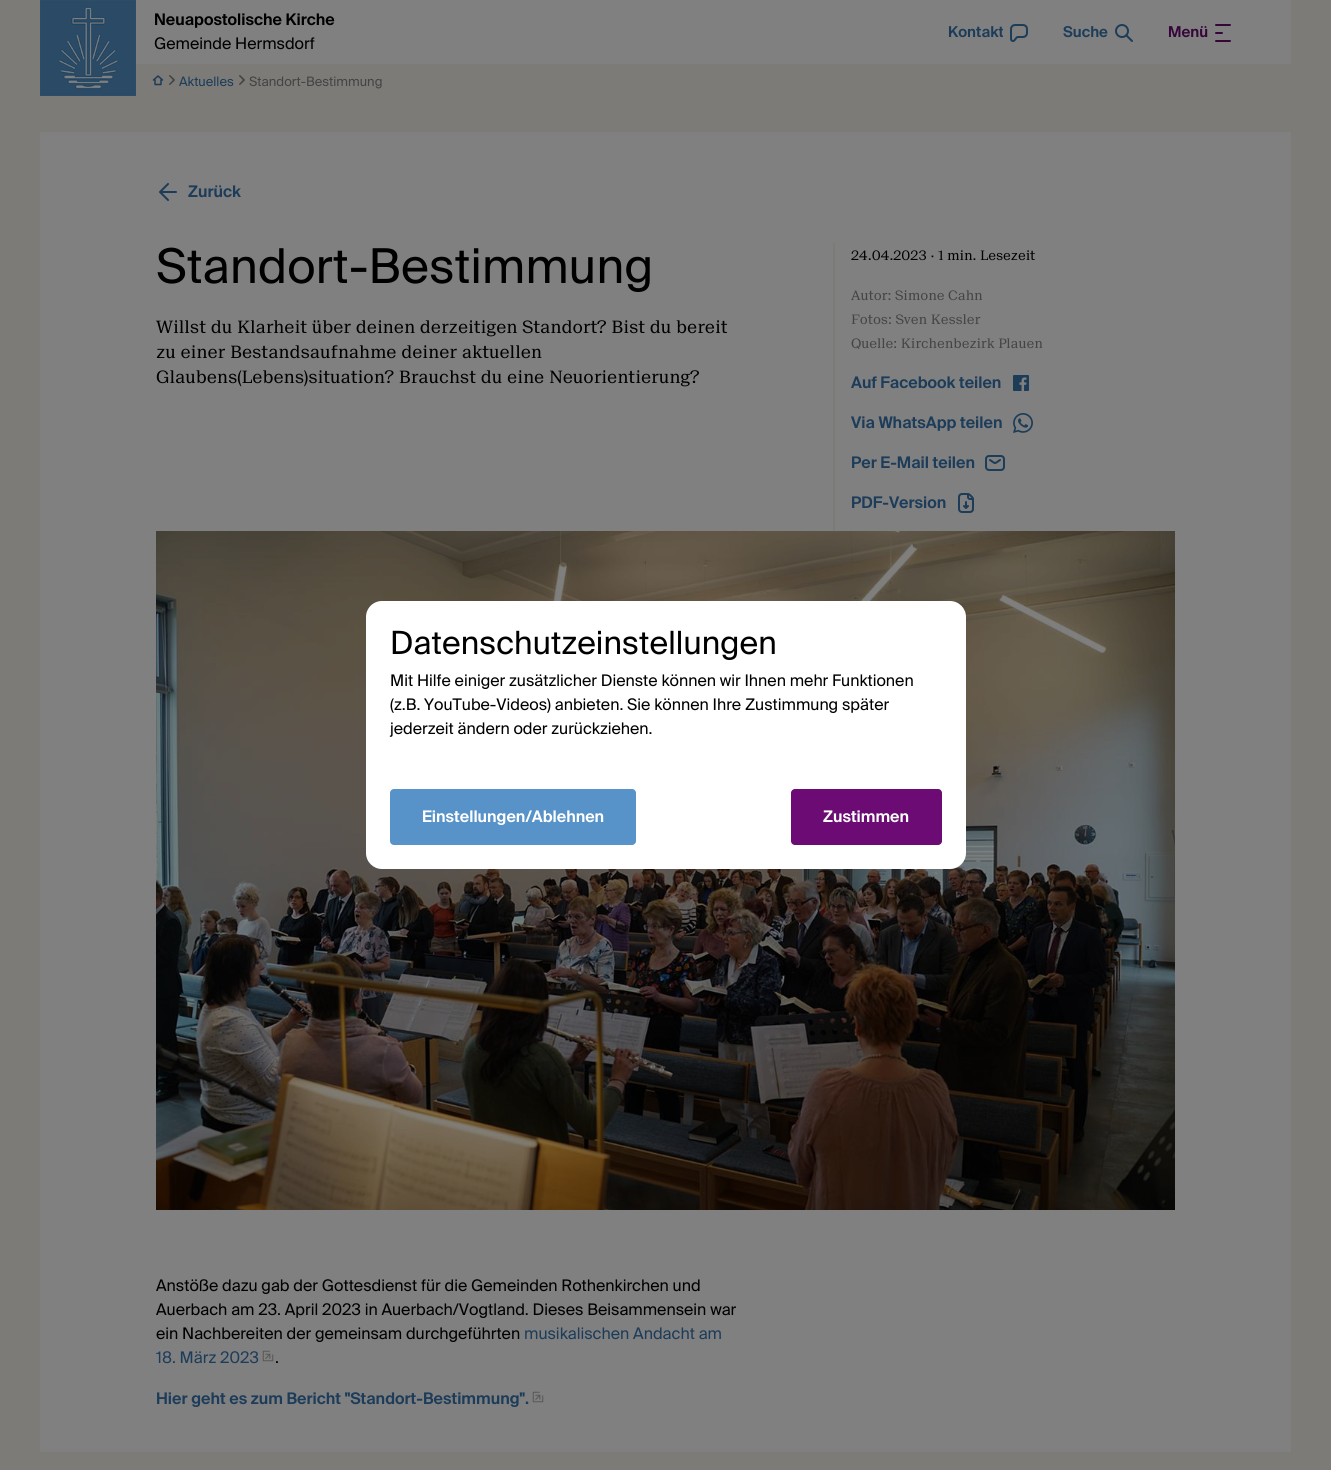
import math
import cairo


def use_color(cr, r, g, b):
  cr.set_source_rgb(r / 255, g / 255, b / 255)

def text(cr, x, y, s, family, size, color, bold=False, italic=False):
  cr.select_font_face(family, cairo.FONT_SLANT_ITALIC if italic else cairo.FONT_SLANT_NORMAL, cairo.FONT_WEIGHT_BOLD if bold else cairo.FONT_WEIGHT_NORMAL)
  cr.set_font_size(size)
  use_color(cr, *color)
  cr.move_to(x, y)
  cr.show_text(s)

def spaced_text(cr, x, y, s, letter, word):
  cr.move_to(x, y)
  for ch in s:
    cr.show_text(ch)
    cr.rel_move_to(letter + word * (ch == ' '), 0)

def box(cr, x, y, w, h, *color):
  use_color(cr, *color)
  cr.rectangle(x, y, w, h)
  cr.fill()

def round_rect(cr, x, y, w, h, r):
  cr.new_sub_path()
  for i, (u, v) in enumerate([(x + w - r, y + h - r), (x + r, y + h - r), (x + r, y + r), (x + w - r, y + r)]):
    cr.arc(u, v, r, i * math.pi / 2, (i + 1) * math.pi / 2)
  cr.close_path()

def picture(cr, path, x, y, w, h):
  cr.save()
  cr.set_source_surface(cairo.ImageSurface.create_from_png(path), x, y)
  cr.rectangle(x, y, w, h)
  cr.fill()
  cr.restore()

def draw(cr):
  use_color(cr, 125, 123, 120)
  cr.paint()
  box(cr, 40, 0, 1251, 64, 128, 128, 128)
  picture(cr, "img_01.png", 40, 0, 96, 96)
  picture(cr, "img_02.png", 1010, 24, 18, 18)
  picture(cr, "img_03.png", 1115, 24, 18, 18)
  picture(cr, "img_04.png", 1215, 24, 16, 18)
  picture(cr, "img_05.png", 152, 75, 12, 11)
  picture(cr, "img_06.png", 169, 75, 6, 10)
  picture(cr, "img_06.png", 239, 75, 6, 10)
  box(cr, 40, 132, 1251, 1320, 128, 128, 128)
  picture(cr, "img_07.png", 159, 183, 18, 18)
  box(cr, 833, 243, 2, 288, 125, 123, 120)
  picture(cr, "img_08.png", 1013, 375, 16, 16)
  picture(cr, "img_09.png", 1013, 413, 20, 20)
  picture(cr, "img_10.png", 985, 455, 20, 16)
  picture(cr, "img_11.png", 958, 493, 16, 20)
  picture(cr, "img_12.png", 156, 531, 1019, 679)
  picture(cr, "img_13.png", 262, 1350, 12, 12)
  picture(cr, "img_13.png", 532, 1391, 12, 12)
  use_color(cr, 255, 255, 255)
  round_rect(cr, 366, 601, 600, 268, 16)
  cr.fill()
  use_color(cr, 87, 147, 201)
  round_rect(cr, 390, 789, 246, 56, 4)
  cr.fill()
  use_color(cr, 108, 11, 115)
  round_rect(cr, 791, 789, 151, 56, 4)
  cr.fill()
  text(cr, 154, 25, "Neuapostolische Kirche", "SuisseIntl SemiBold", 16, (0, 0, 0))
  text(cr, 154, 49, "Gemeinde Hermsdorf", "SuisseIntl", 16, (0, 0, 0))
  text(cr, 948, 37, "Kontakt", "SuisseIntl SemiBold", 15, (28, 60, 89))
  text(cr, 1063, 37, "Suche", "SuisseIntl SemiBold", 15, (28, 60, 89))
  text(cr, 1168, 37, "Menü", "SuisseIntl SemiBold", 15, (54, 6, 58))
  text(cr, 179, 86, "Aktuelles", "SuisseIntl", 13, (28, 60, 89))
  text(cr, 249, 86, "Standort-Bestimmung", "SuisseIntl", 13, (68, 68, 68))
  text(cr, 188, 197, "Zurück", "SuisseIntl SemiBold", 16, (28, 60, 89))
  cr.select_font_face("SuisseIntl")
  cr.set_font_size(48)
  use_color(cr, 0, 0, 0)
  spaced_text(cr, 156, 283, "Standort-Bestimmung", 0.25, 0)
  text(cr, 156, 333, "Willst du Klarheit über deinen derzeitigen Standort? Bist du bereit", "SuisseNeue", 17, (0, 0, 0))
  text(cr, 156, 358, "zu einer Bestandsaufnahme deiner aktuellen", "SuisseNeue", 17, (0, 0, 0))
  text(cr, 156, 383, "Glaubens(Lebens)situation? Brauchst du eine Neuorientierung?", "SuisseNeue", 17, (0, 0, 0))
  text(cr, 851, 260, "24.04.2023 · 1 min. Lesezeit", "SuisseNeue", 13, (0, 0, 0))
  text(cr, 851, 300, "Autor: Simone Cahn", "SuisseNeue", 13, (68, 68, 68))
  text(cr, 851, 324, "Fotos: Sven Kessler", "SuisseNeue", 13, (68, 68, 68))
  text(cr, 851, 348, "Quelle: Kirchenbezirk Plauen", "SuisseNeue", 13, (68, 68, 68))
  text(cr, 851, 388, "Auf Facebook teilen", "SuisseIntl SemiBold", 16, (28, 60, 89))
  text(cr, 851, 428, "Via WhatsApp teilen", "SuisseIntl SemiBold", 16, (28, 60, 89))
  text(cr, 851, 468, "Per E-Mail teilen", "SuisseIntl SemiBold", 16, (28, 60, 89))
  text(cr, 851, 508, "PDF-Version", "SuisseIntl SemiBold", 16, (28, 60, 89))
  text(cr, 156, 1291, "Anstöße dazu gab der Gottesdienst für die Gemeinden Rothenkirchen und", "SuisseIntl", 16, (0, 0, 0))
  text(cr, 156, 1315, "Auerbach am 23. April 2023 in Auerbach/Vogtland. Dieses Beisammensein war", "SuisseIntl", 16, (0, 0, 0))
  text(cr, 156, 1339, "ein Nachbereiten der gemeinsam durchgeführten", "SuisseIntl", 16, (0, 0, 0))
  text(cr, 524, 1339, "musikalischen Andacht am", "SuisseIntl", 16, (28, 60, 89))
  text(cr, 156, 1363, "18. März 2023", "SuisseIntl", 16, (28, 60, 89))
  text(cr, 275, 1363, ".", "SuisseIntl", 16, (0, 0, 0))
  text(cr, 156, 1404, "Hier geht es zum Bericht \"Standort-Bestimmung\".", "SuisseIntl SemiBold", 16, (28, 60, 89))
  cr.select_font_face("SuisseIntl")
  cr.set_font_size(32)
  use_color(cr, 0, 0, 0)
  spaced_text(cr, 390, 654, "Datenschutzeinstellungen", 0.1, 0)
  text(cr, 390, 686, "Mit Hilfe einiger zusätzlicher Dienste können wir Ihnen mehr Funktionen", "SuisseIntl", 16, (0, 0, 0))
  text(cr, 390, 710, "(z.B. YouTube-Videos) anbieten. Sie können Ihre Zustimmung später", "SuisseIntl", 16, (0, 0, 0))
  text(cr, 390, 734, "jederzeit ändern oder zurückziehen.", "SuisseIntl", 16, (0, 0, 0))
  text(cr, 422, 822, "Einstellungen/Ablehnen", "SuisseIntl SemiBold", 16, (255, 255, 255))
  text(cr, 823, 822, "Zustimmen", "SuisseIntl SemiBold", 16, (255, 255, 255))


surface = cairo.ImageSurface(cairo.FORMAT_RGB24, 1331, 1470)
cr = cairo.Context(surface)
options = cairo.FontOptions()
options.set_hint_metrics(cairo.HINT_METRICS_OFF)
options.set_hint_style(cairo.HINT_STYLE_NONE)
cr.set_font_options(options)
cr.set_miter_limit(4)
draw(cr)
surface.write_to_png("out.png")
